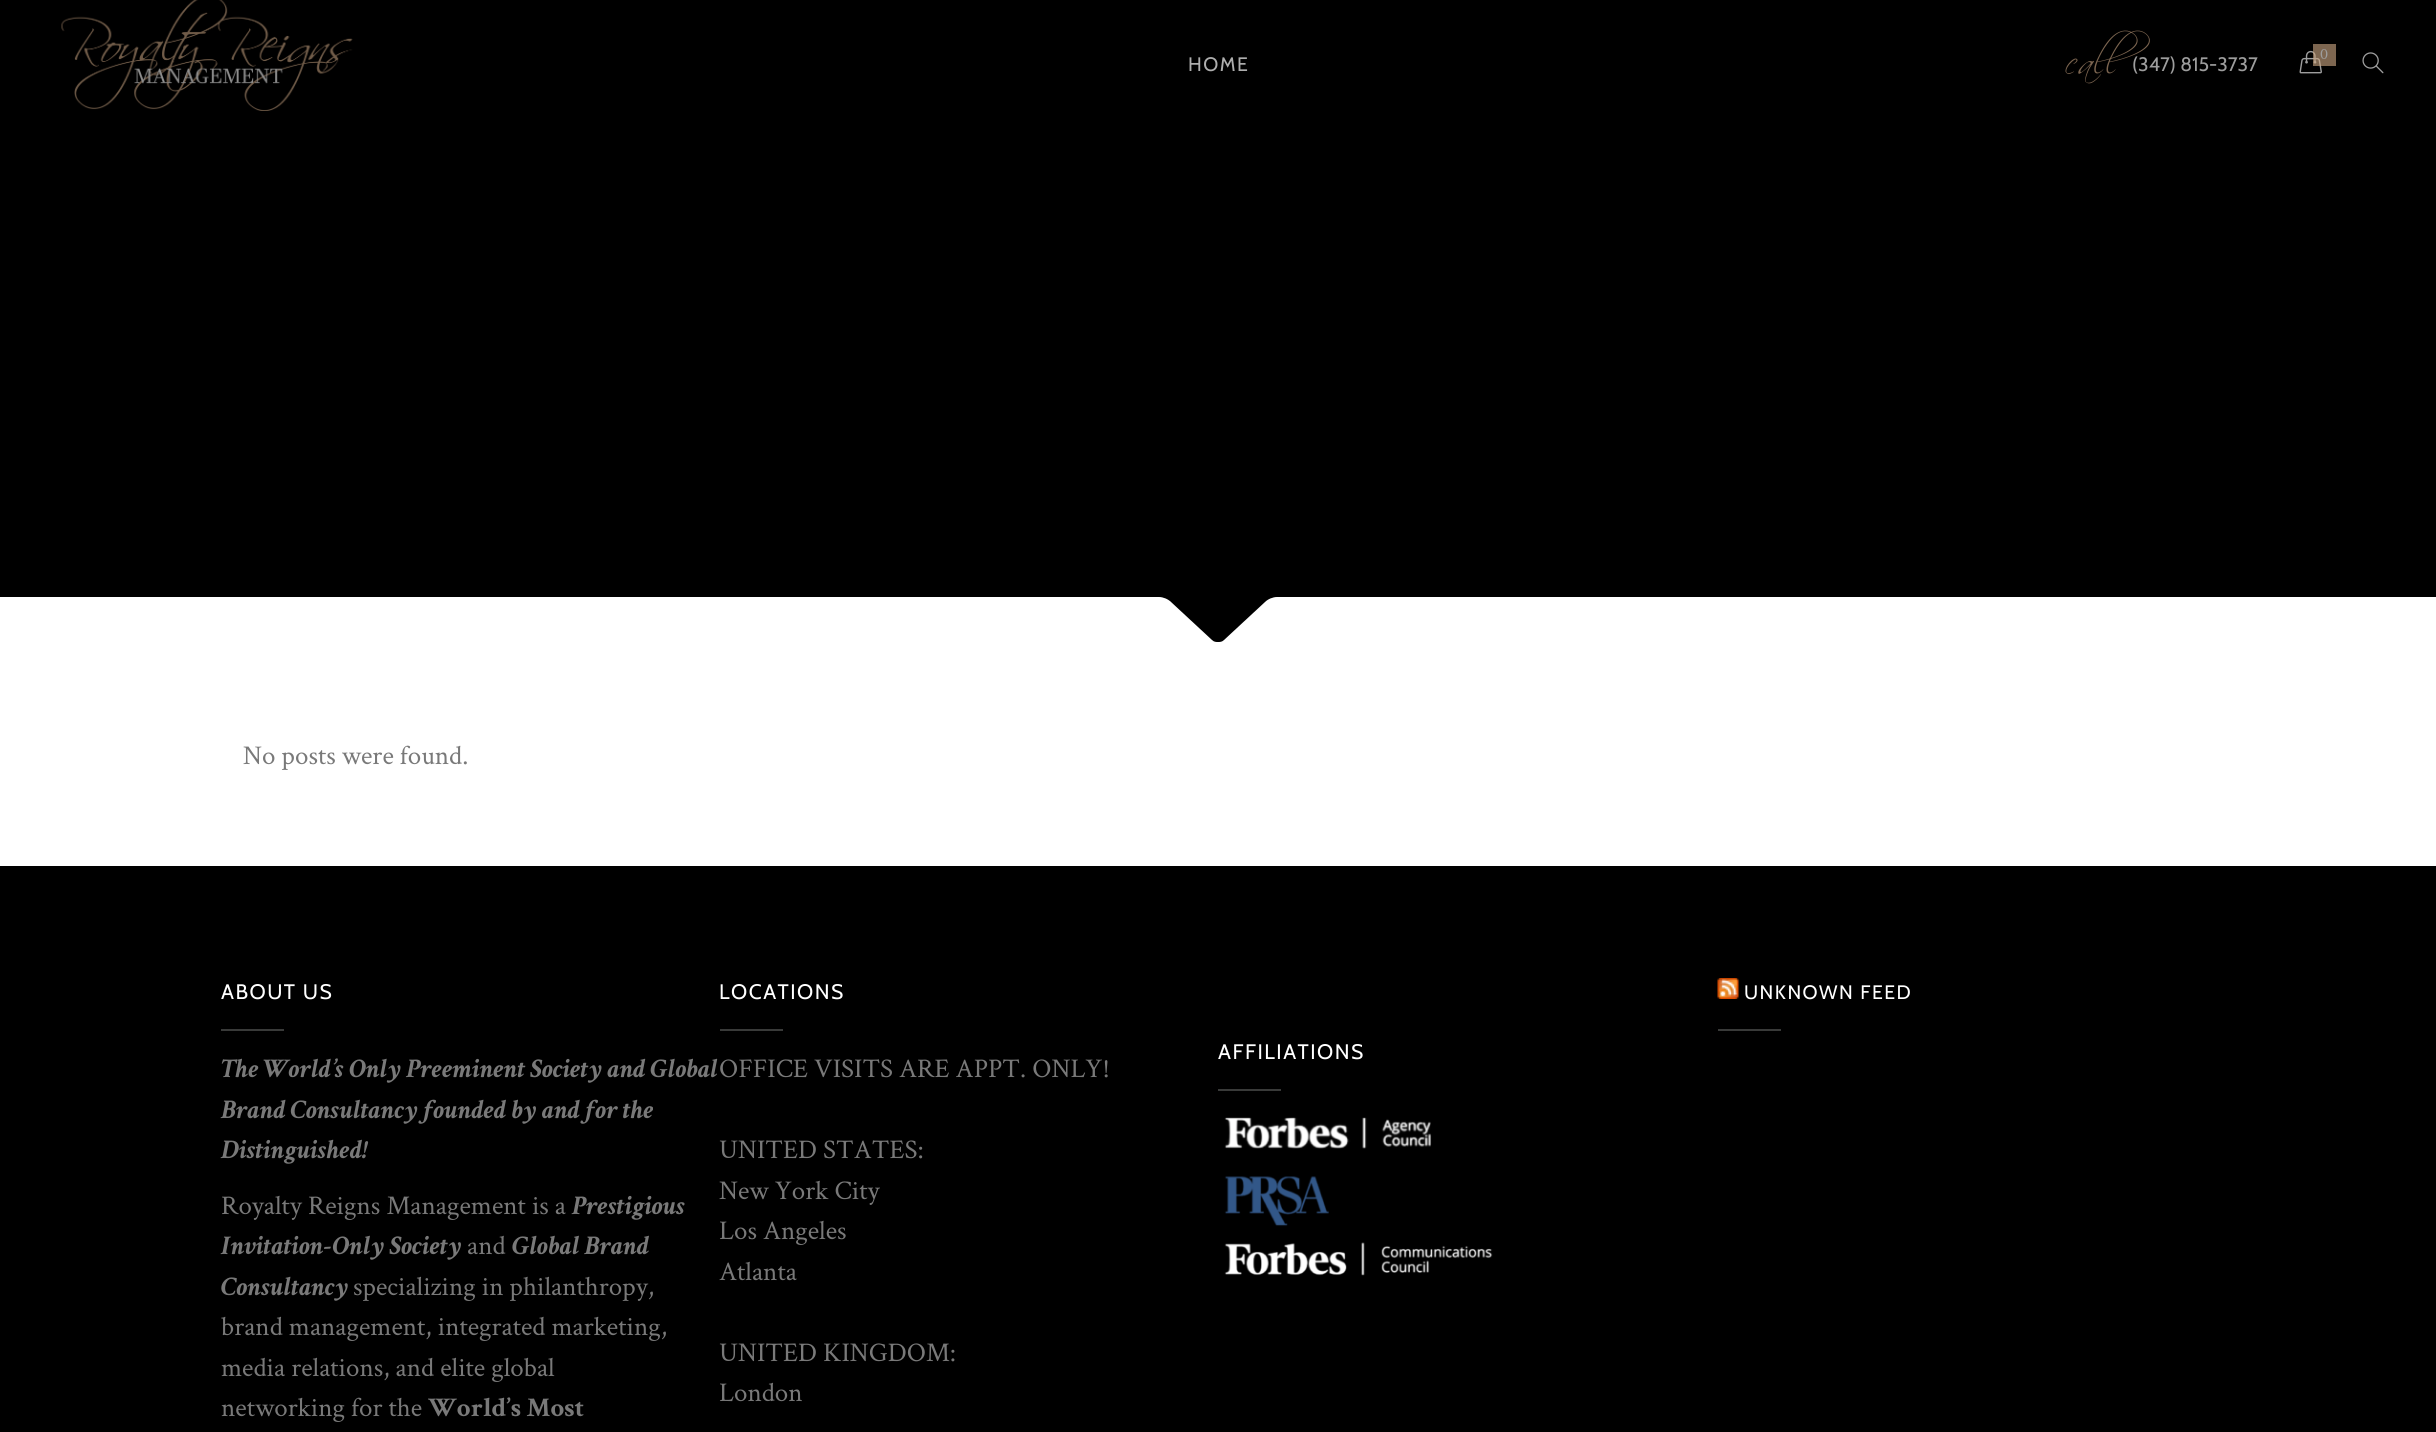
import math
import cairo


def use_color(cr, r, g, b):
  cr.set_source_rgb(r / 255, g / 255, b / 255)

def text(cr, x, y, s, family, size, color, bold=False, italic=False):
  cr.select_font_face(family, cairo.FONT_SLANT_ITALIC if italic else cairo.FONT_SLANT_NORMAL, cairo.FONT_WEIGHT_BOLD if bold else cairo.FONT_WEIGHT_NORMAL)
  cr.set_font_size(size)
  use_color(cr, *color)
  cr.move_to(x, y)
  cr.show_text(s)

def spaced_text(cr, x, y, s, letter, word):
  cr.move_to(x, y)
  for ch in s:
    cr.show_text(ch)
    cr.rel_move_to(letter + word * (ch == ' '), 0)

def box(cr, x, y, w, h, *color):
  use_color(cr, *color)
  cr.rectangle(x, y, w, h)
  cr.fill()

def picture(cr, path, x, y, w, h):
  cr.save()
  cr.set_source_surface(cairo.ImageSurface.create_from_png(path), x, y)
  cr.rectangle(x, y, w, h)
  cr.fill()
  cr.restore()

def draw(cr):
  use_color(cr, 255, 255, 255)
  cr.paint()
  box(cr, 0, 0, 2436, 642, 0, 0, 0)
  picture(cr, "img_01.png", 61, 0, 292, 111)
  picture(cr, "img_02.png", 2299, 50, 23, 24)
  cr.set_source_rgba(0.788, 0.643, 0.51, 0.62)
  cr.rectangle(2313, 44, 23, 22)
  cr.fill()
  picture(cr, "img_03.png", 2362, 52, 22, 22)
  box(cr, 0, 597, 1158, 45, 255, 255, 255)
  cr.new_path()
  cr.move_to(1278, 645)
  cr.line_to(1278, 597)
  cr.line_to(1277, 597)
  cr.curve_to(1273, 597, 1268, 599, 1265, 602)
  cr.line_to(1224, 640)
  cr.curve_to(1222, 642, 1220, 642, 1218, 642)
  cr.curve_to(1216, 642, 1214, 642, 1212, 640)
  cr.line_to(1171, 602)
  cr.curve_to(1168, 599, 1163, 597, 1159, 597)
  cr.line_to(1158, 597)
  cr.line_to(1158, 645)
  cr.close_path()
  cr.fill()
  box(cr, 1278, 597, 1158, 45, 255, 255, 255)
  box(cr, 0, 866, 2436, 566, 0, 0, 0)
  box(cr, 221, 1029, 63, 2, 57, 58, 57)
  box(cr, 720, 1029, 63, 2, 57, 58, 57)
  picture(cr, "img_04.png", 1717, 978, 22, 21)
  box(cr, 1718, 1029, 63, 2, 57, 58, 57)
  box(cr, 1218, 1089, 63, 2, 57, 58, 57)
  picture(cr, "img_05.png", 1224, 1117, 269, 159)
  cr.select_font_face("Cabin")
  cr.set_font_size(19.5)
  use_color(cr, 174, 174, 174)
  spaced_text(cr, 1188, 71, "HOME", 1.5, 0)
  text(cr, 2065, 74, "call", "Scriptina", 36, (124, 101, 80))
  text(cr, 2132, 71, "(347) 815-3737", "Cabin", 19.5, (157, 157, 157))
  text(cr, 2320, 59, "0", "Crimson Text", 16, (157, 157, 157))
  text(cr, 243, 764, "No posts were found.", "Crimson Text", 27, (121, 121, 121))
  cr.select_font_face("Cabin")
  cr.set_font_size(21)
  use_color(cr, 255, 255, 255)
  spaced_text(cr, 221, 999, "ABOUT US", 1.5, 0)
  text(cr, 221, 1077, "The World’s Only Preeminent Society and Global", "Crimson Text", 27, (121, 121, 121), bold=True, italic=True)
  text(cr, 221, 1118, "Brand Consultancy founded by and for the", "Crimson Text", 27, (121, 121, 121), bold=True, italic=True)
  text(cr, 221, 1158, "Distinguished!", "Crimson Text", 27, (121, 121, 121), bold=True, italic=True)
  text(cr, 221, 1214, "Royalty Reigns Management is a", "Crimson Text", 27, (121, 121, 121))
  text(cr, 572, 1214, "Prestigious", "Crimson Text", 27, (121, 121, 121), bold=True, italic=True)
  text(cr, 221, 1254, "Invitation-Only Society", "Crimson Text", 27, (121, 121, 121), bold=True, italic=True)
  text(cr, 467, 1254, "and", "Crimson Text", 27, (121, 121, 121))
  text(cr, 512, 1254, "Global Brand", "Crimson Text", 27, (121, 121, 121), bold=True, italic=True)
  text(cr, 221, 1295, "Consultancy", "Crimson Text", 27, (121, 121, 121), bold=True, italic=True)
  text(cr, 353, 1295, "specializing in philanthropy,", "Crimson Text", 27, (121, 121, 121))
  text(cr, 221, 1335, "brand management, integrated marketing,", "Crimson Text", 27, (121, 121, 121))
  text(cr, 221, 1376, "media relations, and elite global", "Crimson Text", 27, (121, 121, 121))
  text(cr, 221, 1416, "networking for the", "Crimson Text", 27, (121, 121, 121))
  text(cr, 428, 1416, "World’s Most", "Crimson Text", 27, (121, 121, 121), bold=True)
  cr.select_font_face("Cabin")
  cr.set_font_size(21)
  use_color(cr, 255, 255, 255)
  spaced_text(cr, 719, 999, "LOCATIONS", 1.5, 0)
  text(cr, 719, 1077, "OFFICE VISITS ARE APPT. ONLY!", "Crimson Text", 27, (121, 121, 121))
  text(cr, 719, 1158, "UNITED STATES:", "Crimson Text", 27, (121, 121, 121))
  text(cr, 719, 1199, "New York City", "Crimson Text", 27, (121, 121, 121))
  text(cr, 719, 1239, "Los Angeles", "Crimson Text", 27, (121, 121, 121))
  text(cr, 719, 1280, "Atlanta", "Crimson Text", 27, (121, 121, 121))
  text(cr, 719, 1361, "UNITED KINGDOM:", "Crimson Text", 27, (121, 121, 121))
  text(cr, 719, 1401, "London", "Crimson Text", 27, (121, 121, 121))
  cr.select_font_face("Cabin")
  cr.set_font_size(19.5)
  use_color(cr, 255, 255, 255)
  spaced_text(cr, 1744, 999, "UNKNOWN FEED", 1.5, 0)
  cr.set_font_size(21)
  spaced_text(cr, 1218, 1059, "AFFILIATIONS", 1.5, 0)


surface = cairo.ImageSurface(cairo.FORMAT_RGB24, 2436, 1432)
cr = cairo.Context(surface)
options = cairo.FontOptions()
options.set_hint_metrics(cairo.HINT_METRICS_OFF)
options.set_hint_style(cairo.HINT_STYLE_NONE)
cr.set_font_options(options)
cr.set_miter_limit(4)
draw(cr)
surface.write_to_png("out.png")
